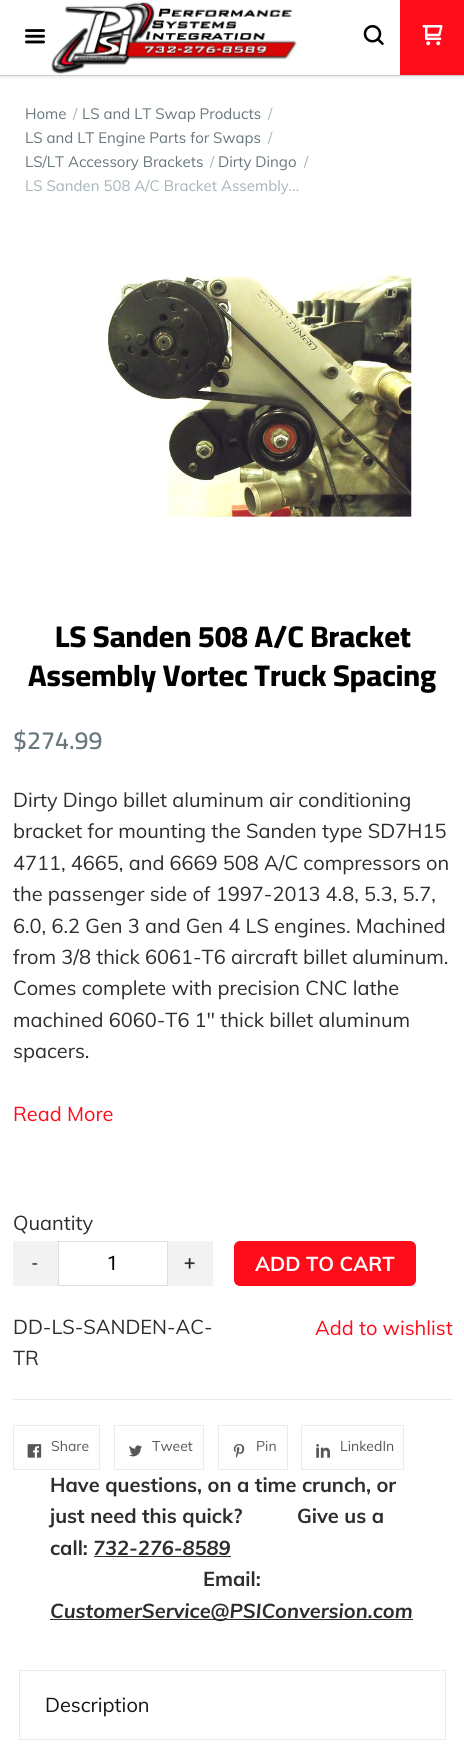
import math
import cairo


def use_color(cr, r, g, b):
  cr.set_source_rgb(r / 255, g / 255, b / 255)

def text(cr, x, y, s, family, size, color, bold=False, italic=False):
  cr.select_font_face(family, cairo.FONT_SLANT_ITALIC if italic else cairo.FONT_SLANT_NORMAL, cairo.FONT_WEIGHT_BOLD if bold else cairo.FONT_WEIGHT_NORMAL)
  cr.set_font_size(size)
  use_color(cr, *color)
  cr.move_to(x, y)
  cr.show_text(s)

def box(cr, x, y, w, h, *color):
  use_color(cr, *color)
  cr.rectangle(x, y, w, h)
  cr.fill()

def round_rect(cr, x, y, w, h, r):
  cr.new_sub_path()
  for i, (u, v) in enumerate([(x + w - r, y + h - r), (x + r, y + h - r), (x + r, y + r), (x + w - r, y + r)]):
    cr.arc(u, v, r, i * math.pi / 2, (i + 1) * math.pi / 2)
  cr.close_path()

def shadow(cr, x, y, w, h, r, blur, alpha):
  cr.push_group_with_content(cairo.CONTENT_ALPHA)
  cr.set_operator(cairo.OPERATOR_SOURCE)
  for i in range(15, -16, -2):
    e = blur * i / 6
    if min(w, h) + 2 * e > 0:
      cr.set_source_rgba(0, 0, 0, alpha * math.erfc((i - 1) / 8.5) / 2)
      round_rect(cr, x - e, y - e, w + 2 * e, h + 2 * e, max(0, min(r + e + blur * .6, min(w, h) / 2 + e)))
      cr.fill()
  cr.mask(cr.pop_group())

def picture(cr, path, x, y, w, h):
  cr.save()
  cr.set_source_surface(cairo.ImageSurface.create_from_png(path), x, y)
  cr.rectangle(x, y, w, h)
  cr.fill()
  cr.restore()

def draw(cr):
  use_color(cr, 255, 255, 255)
  cr.paint()
  box(cr, 0, 75, 464, 1, 218, 225, 227)
  cr.save()
  cr.rectangle(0, 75, 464, 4)
  cr.clip()
  use_color(cr, 0, 0, 0)
  shadow(cr, 0, 0, 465, 75, 0, 3, 0.2)
  cr.restore()
  picture(cr, "img_01.png", 25, 29, 20, 15)
  picture(cr, "img_02.png", 51, 2, 246, 72)
  picture(cr, "img_03.png", 363, 25, 21, 20)
  box(cr, 400, 0, 64, 75, 254, 12, 26)
  picture(cr, "img_04.png", 422, 25, 21, 21)
  picture(cr, "img_05.png", 107, 272, 305, 245)
  box(cr, 13, 1241, 45, 45, 242, 242, 242)
  cr.rectangle(58.5, 1241.5, 109, 44)
  use_color(cr, 218, 225, 227)
  cr.set_line_width(1)
  cr.stroke()
  box(cr, 168, 1241, 45, 45, 242, 242, 242)
  use_color(cr, 254, 12, 26)
  round_rect(cr, 234, 1241, 182, 45, 6)
  cr.fill()
  box(cr, 13, 1399, 440, 1, 235, 235, 235)
  cr.rectangle(13.5, 1425.5, 86, 44)
  cr.stroke()
  picture(cr, "img_06.png", 27, 1444, 15, 14)
  cr.rectangle(114.5, 1425.5, 89, 44)
  cr.stroke()
  picture(cr, "img_07.png", 129, 1445, 13, 12)
  cr.rectangle(218.5, 1425.5, 69, 44)
  cr.stroke()
  picture(cr, "img_08.png", 233, 1444, 12, 14)
  cr.rectangle(301.5, 1425.5, 102, 44)
  cr.stroke()
  picture(cr, "img_09.png", 316, 1444, 14, 14)
  box(cr, 94, 1556, 137, 1, 45, 45, 45)
  box(cr, 50, 1619, 363, 1, 45, 45, 45)
  cr.rectangle(19.5, 1670.5, 426, 69)
  use_color(cr, 234, 234, 234)
  cr.stroke()
  text(cr, 25, 119, "Home", "Muli", 15, (103, 119, 124))
  text(cr, 73, 119, "/", "Muli", 15, (165, 181, 185))
  text(cr, 82, 119, "LS and LT Swap Products", "Muli", 15, (103, 119, 124))
  text(cr, 268, 119, "/", "Muli", 15, (165, 181, 185))
  text(cr, 25, 143, "LS and LT Engine Parts for Swaps", "Muli", 15, (103, 119, 124))
  text(cr, 268, 143, "/", "Muli", 15, (165, 181, 185))
  text(cr, 25, 167, "LS/LT Accessory Brackets", "Muli", 15, (103, 119, 124))
  text(cr, 210, 167, "/", "Muli", 15, (165, 181, 185))
  text(cr, 218, 167, "Dirty Dingo", "Muli", 15, (103, 119, 124))
  text(cr, 304, 167, "/", "Muli", 15, (165, 181, 185))
  text(cr, 25, 191, "LS Sanden 508 A/C Bracket Assembly…", "Muli", 15, (165, 181, 185))
  text(cr, 55, 647, "LS Sanden 508 A/C Bracket", "Cairo ExtraBold", 30, (0, 0, 0))
  text(cr, 28, 686, "Assembly Vortec Truck Spacing", "Cairo ExtraBold", 30, (0, 0, 0))
  text(cr, 13, 749, "$274.99", "Cairo SemiBold", 25, (103, 119, 124))
  text(cr, 13, 807, "Dirty Dingo billet aluminum air conditioning", "Muli", 20, (45, 45, 45))
  text(cr, 13, 838, "bracket for mounting the Sanden type SD7H15", "Muli", 20, (45, 45, 45))
  text(cr, 13, 870, "4711, 4665, and 6669 508 A/C compressors on", "Muli", 20, (45, 45, 45))
  text(cr, 13, 901, "the passenger side of 1997-2013 4.8, 5.3, 5.7,", "Muli", 20, (45, 45, 45))
  text(cr, 13, 933, "6.0, 6.2 Gen 3 and Gen 4 LS engines. Machined", "Muli", 20, (45, 45, 45))
  text(cr, 13, 964, "from 3/8 thick 6061-T6 aircraft billet aluminum.", "Muli", 20, (45, 45, 45))
  text(cr, 13, 995, "Comes complete with precision CNC lathe", "Muli", 20, (45, 45, 45))
  text(cr, 13, 1027, "machined 6060-T6 1\" thick billet aluminum", "Muli", 20, (45, 45, 45))
  text(cr, 13, 1058, "spacers.", "Muli", 20, (45, 45, 45))
  text(cr, 13, 1121, "Read More", "Muli", 20, (254, 12, 26))
  text(cr, 13, 1230, "Quantity", "Muli", 20, (45, 45, 45))
  text(cr, 32, 1270, "-", "Roboto", 20, (45, 45, 45))
  text(cr, 107, 1270, "1", "Roboto", 20, (0, 0, 0))
  text(cr, 184, 1270, "+", "Roboto", 20, (45, 45, 45))
  text(cr, 255, 1271, "ADD TO CART", "Muli", 20, (255, 255, 255), bold=True)
  text(cr, 13, 1334, "DD-LS-SANDEN-AC-", "Muli", 20, (45, 45, 45))
  text(cr, 13, 1365, "TR", "Muli", 20, (45, 45, 45))
  text(cr, 315, 1335, "Add to wishlist", "Muli", 20, (254, 12, 26))
  text(cr, 51, 1451, "Share", "Muli", 14, (87, 87, 87))
  text(cr, 152, 1451, "Tweet", "Muli", 14, (87, 87, 87))
  text(cr, 256, 1451, "Pin", "Muli", 14, (87, 87, 87))
  text(cr, 340, 1451, "LinkedIn", "Muli", 14, (87, 87, 87))
  text(cr, 50, 1492, "Have questions, on a time crunch, or", "Muli", 20, (45, 45, 45), bold=True)
  text(cr, 50, 1523, "just need this quick?          Give us a", "Muli", 20, (45, 45, 45), bold=True)
  text(cr, 50, 1555, "call:", "Muli", 20, (45, 45, 45), bold=True)
  text(cr, 93, 1555, "732-276-8589", "Muli", 20, (45, 45, 45), bold=True, italic=True)
  text(cr, 203, 1586, "Email:", "Muli", 20, (45, 45, 45), bold=True)
  text(cr, 50, 1618, "CustomerService@PSIConversion.com", "Muli", 20, (45, 45, 45), bold=True, italic=True)
  text(cr, 45, 1712, "Description", "Muli", 20, (20, 20, 20))


surface = cairo.ImageSurface(cairo.FORMAT_RGB24, 464, 1758)
cr = cairo.Context(surface)
options = cairo.FontOptions()
options.set_hint_metrics(cairo.HINT_METRICS_OFF)
options.set_hint_style(cairo.HINT_STYLE_NONE)
cr.set_font_options(options)
cr.set_miter_limit(4)
draw(cr)
surface.write_to_png("out.png")
